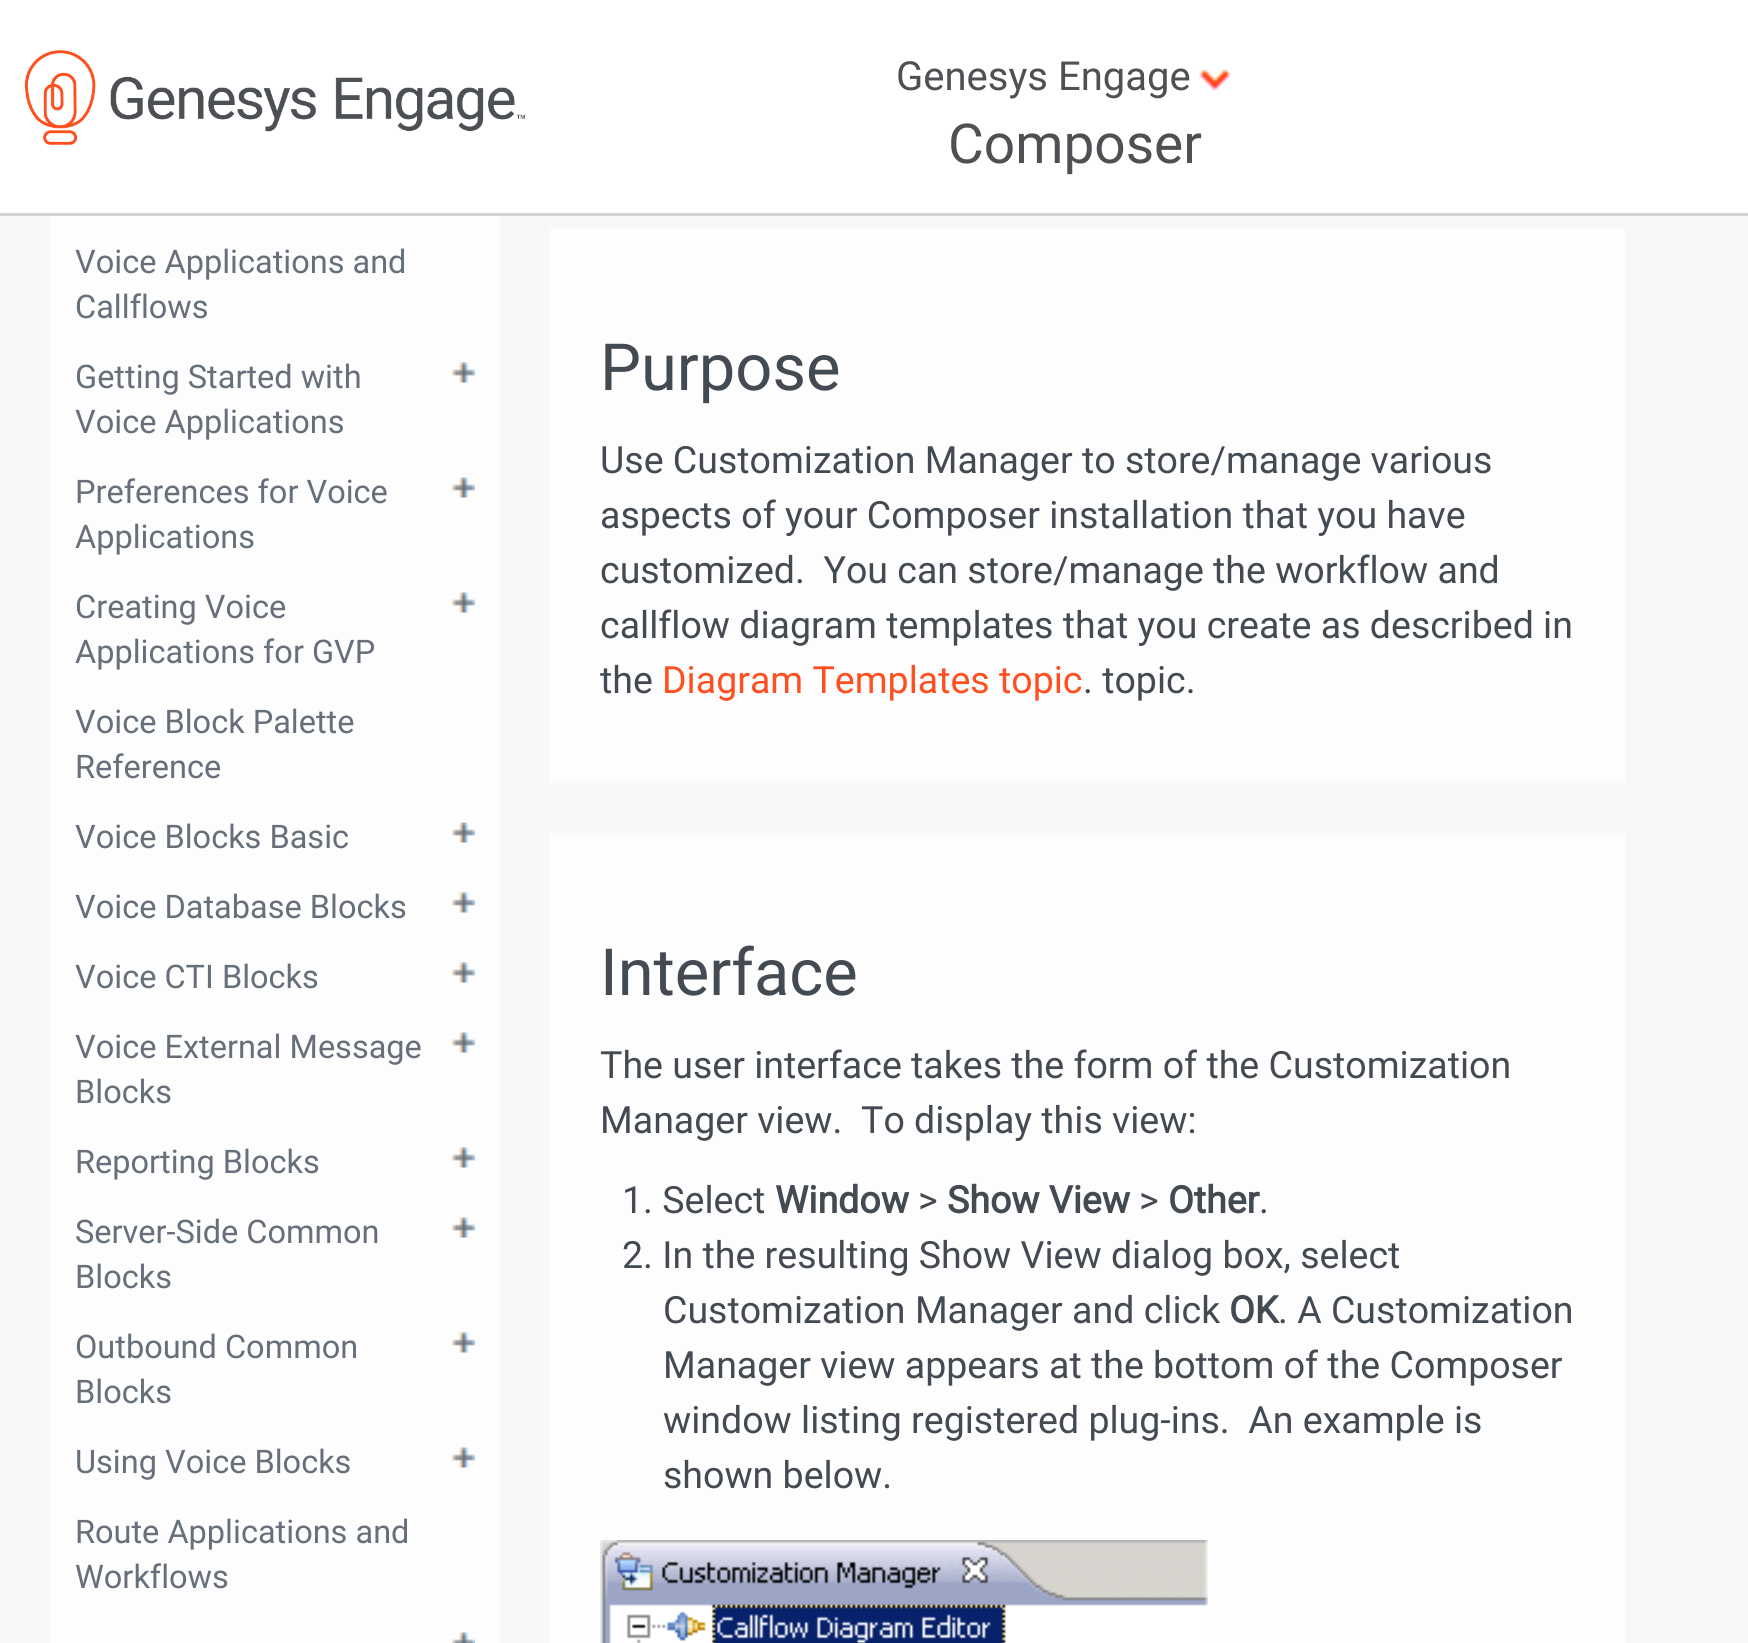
import math
import cairo


def use_color(cr, r, g, b):
  cr.set_source_rgb(r / 255, g / 255, b / 255)

def text(cr, x, y, s, family, size, color, bold=False, italic=False):
  cr.select_font_face(family, cairo.FONT_SLANT_ITALIC if italic else cairo.FONT_SLANT_NORMAL, cairo.FONT_WEIGHT_BOLD if bold else cairo.FONT_WEIGHT_NORMAL)
  cr.set_font_size(size)
  use_color(cr, *color)
  cr.move_to(x, y)
  cr.show_text(s)

def box(cr, x, y, w, h, *color):
  use_color(cr, *color)
  cr.rectangle(x, y, w, h)
  cr.fill()

def picture(cr, path, x, y, w, h):
  cr.save()
  cr.set_source_surface(cairo.ImageSurface.create_from_png(path), x, y)
  cr.rectangle(x, y, w, h)
  cr.fill()
  cr.restore()

def draw(cr):
  use_color(cr, 248, 248, 248)
  cr.paint()
  box(cr, 0, 0, 1748, 213, 255, 255, 255)
  box(cr, 0, 213, 1748, 3, 211, 211, 212)
  picture(cr, "img_01.png", 25, 50, 500, 95)
  picture(cr, "img_02.png", 1199, 69, 32, 22)
  box(cr, 50, 216, 450, 1427, 253, 253, 253)
  picture(cr, "img_03.png", 452, 362, 23, 21)
  picture(cr, "img_03.png", 452, 477, 23, 21)
  picture(cr, "img_03.png", 452, 592, 23, 21)
  picture(cr, "img_03.png", 452, 822, 23, 21)
  picture(cr, "img_03.png", 452, 892, 23, 21)
  picture(cr, "img_03.png", 452, 962, 23, 21)
  picture(cr, "img_03.png", 452, 1032, 23, 21)
  picture(cr, "img_03.png", 452, 1147, 23, 21)
  picture(cr, "img_03.png", 452, 1217, 23, 21)
  picture(cr, "img_03.png", 452, 1332, 23, 21)
  picture(cr, "img_03.png", 452, 1447, 23, 21)
  picture(cr, "img_04.png", 452, 1632, 23, 11)
  box(cr, 550, 228, 1075, 1415, 253, 253, 253)
  box(cr, 550, 783, 1075, 50, 248, 248, 248)
  picture(cr, "img_05.png", 600, 1540, 608, 103)
  text(cr, 896, 90, "Genesys Engage", "Roboto", 40, (78, 80, 84))
  text(cr, 948, 163, "Composer", "Roboto", 55, (78, 80, 84))
  text(cr, 75, 273, "Voice Applications and", "Roboto", 32.5, (102, 111, 122))
  text(cr, 75, 318, "Callflows", "Roboto", 32.5, (102, 111, 122))
  text(cr, 75, 388, "Getting Started with", "Roboto", 32.5, (102, 111, 122))
  text(cr, 75, 433, "Voice Applications", "Roboto", 32.5, (102, 111, 122))
  text(cr, 75, 503, "Preferences for Voice", "Roboto", 32.5, (102, 111, 122))
  text(cr, 75, 548, "Applications", "Roboto", 32.5, (102, 111, 122))
  text(cr, 75, 618, "Creating Voice", "Roboto", 32.5, (102, 111, 122))
  text(cr, 75, 663, "Applications for GVP", "Roboto", 32.5, (102, 111, 122))
  text(cr, 75, 733, "Voice Block Palette", "Roboto", 32.5, (102, 111, 122))
  text(cr, 75, 778, "Reference", "Roboto", 32.5, (102, 111, 122))
  text(cr, 75, 848, "Voice Blocks Basic", "Roboto", 32.5, (102, 111, 122))
  text(cr, 75, 918, "Voice Database Blocks", "Roboto", 32.5, (102, 111, 122))
  text(cr, 75, 988, "Voice CTI Blocks", "Roboto", 32.5, (102, 111, 122))
  text(cr, 75, 1058, "Voice External Message", "Roboto", 32.5, (102, 111, 122))
  text(cr, 75, 1103, "Blocks", "Roboto", 32.5, (102, 111, 122))
  text(cr, 75, 1173, "Reporting Blocks", "Roboto", 32.5, (102, 111, 122))
  text(cr, 75, 1243, "Server-Side Common", "Roboto", 32.5, (102, 111, 122))
  text(cr, 75, 1288, "Blocks", "Roboto", 32.5, (102, 111, 122))
  text(cr, 75, 1358, "Outbound Common", "Roboto", 32.5, (102, 111, 122))
  text(cr, 75, 1403, "Blocks", "Roboto", 32.5, (102, 111, 122))
  text(cr, 75, 1473, "Using Voice Blocks", "Roboto", 32.5, (102, 111, 122))
  text(cr, 75, 1543, "Route Applications and", "Roboto", 32.5, (102, 111, 122))
  text(cr, 75, 1588, "Workflows", "Roboto", 32.5, (102, 111, 122))
  text(cr, 600, 390, "Purpose", "Roboto", 65, (68, 74, 82))
  text(cr, 600, 473, "Use Customization Manager to store/manage various", "Roboto", 37.5, (68, 74, 82))
  text(cr, 600, 528, "aspects of your Composer installation that you have", "Roboto", 37.5, (68, 74, 82))
  text(cr, 600, 583, "customized.  You can store/manage the workflow and", "Roboto", 37.5, (68, 74, 82))
  text(cr, 600, 638, "callflow diagram templates that you create as described in", "Roboto", 37.5, (68, 74, 82))
  text(cr, 600, 693, "the", "Roboto", 37.5, (68, 74, 82))
  text(cr, 662, 693, "Diagram Templates topic", "Roboto", 37.5, (255, 79, 31))
  text(cr, 1083, 693, ". topic.", "Roboto", 37.5, (68, 74, 82))
  text(cr, 600, 995, "Interface", "Roboto", 65, (68, 74, 82))
  text(cr, 600, 1078, "The user interface takes the form of the Customization", "Roboto", 37.5, (68, 74, 82))
  text(cr, 600, 1133, "Manager view.  To display this view:", "Roboto", 37.5, (68, 74, 82))
  text(cr, 622, 1213, "1. Select", "Roboto", 37.5, (68, 74, 82))
  text(cr, 775, 1213, "Window", "Roboto", 37.5, (68, 74, 82), bold=True)
  text(cr, 918, 1213, ">", "Roboto", 37.5, (68, 74, 82))
  text(cr, 947, 1213, "Show View", "Roboto", 37.5, (68, 74, 82), bold=True)
  text(cr, 1139, 1213, ">", "Roboto", 37.5, (68, 74, 82))
  text(cr, 1168, 1213, "Other", "Roboto", 37.5, (68, 74, 82), bold=True)
  text(cr, 1259, 1213, ".", "Roboto", 37.5, (68, 74, 82))
  text(cr, 622, 1268, "2. In the resulting Show View dialog box, select", "Roboto", 37.5, (68, 74, 82))
  text(cr, 663, 1323, "Customization Manager and click", "Roboto", 37.5, (68, 74, 82))
  text(cr, 1229, 1323, "OK", "Roboto", 37.5, (68, 74, 82), bold=True)
  text(cr, 1278, 1323, ". A Customization", "Roboto", 37.5, (68, 74, 82))
  text(cr, 663, 1378, "Manager view appears at the bottom of the Composer", "Roboto", 37.5, (68, 74, 82))
  text(cr, 663, 1433, "window listing registered plug-ins.  An example is", "Roboto", 37.5, (68, 74, 82))
  text(cr, 663, 1488, "shown below.", "Roboto", 37.5, (68, 74, 82))


surface = cairo.ImageSurface(cairo.FORMAT_RGB24, 1748, 1643)
cr = cairo.Context(surface)
options = cairo.FontOptions()
options.set_hint_metrics(cairo.HINT_METRICS_OFF)
options.set_hint_style(cairo.HINT_STYLE_NONE)
cr.set_font_options(options)
cr.set_miter_limit(4)
draw(cr)
surface.write_to_png("out.png")
